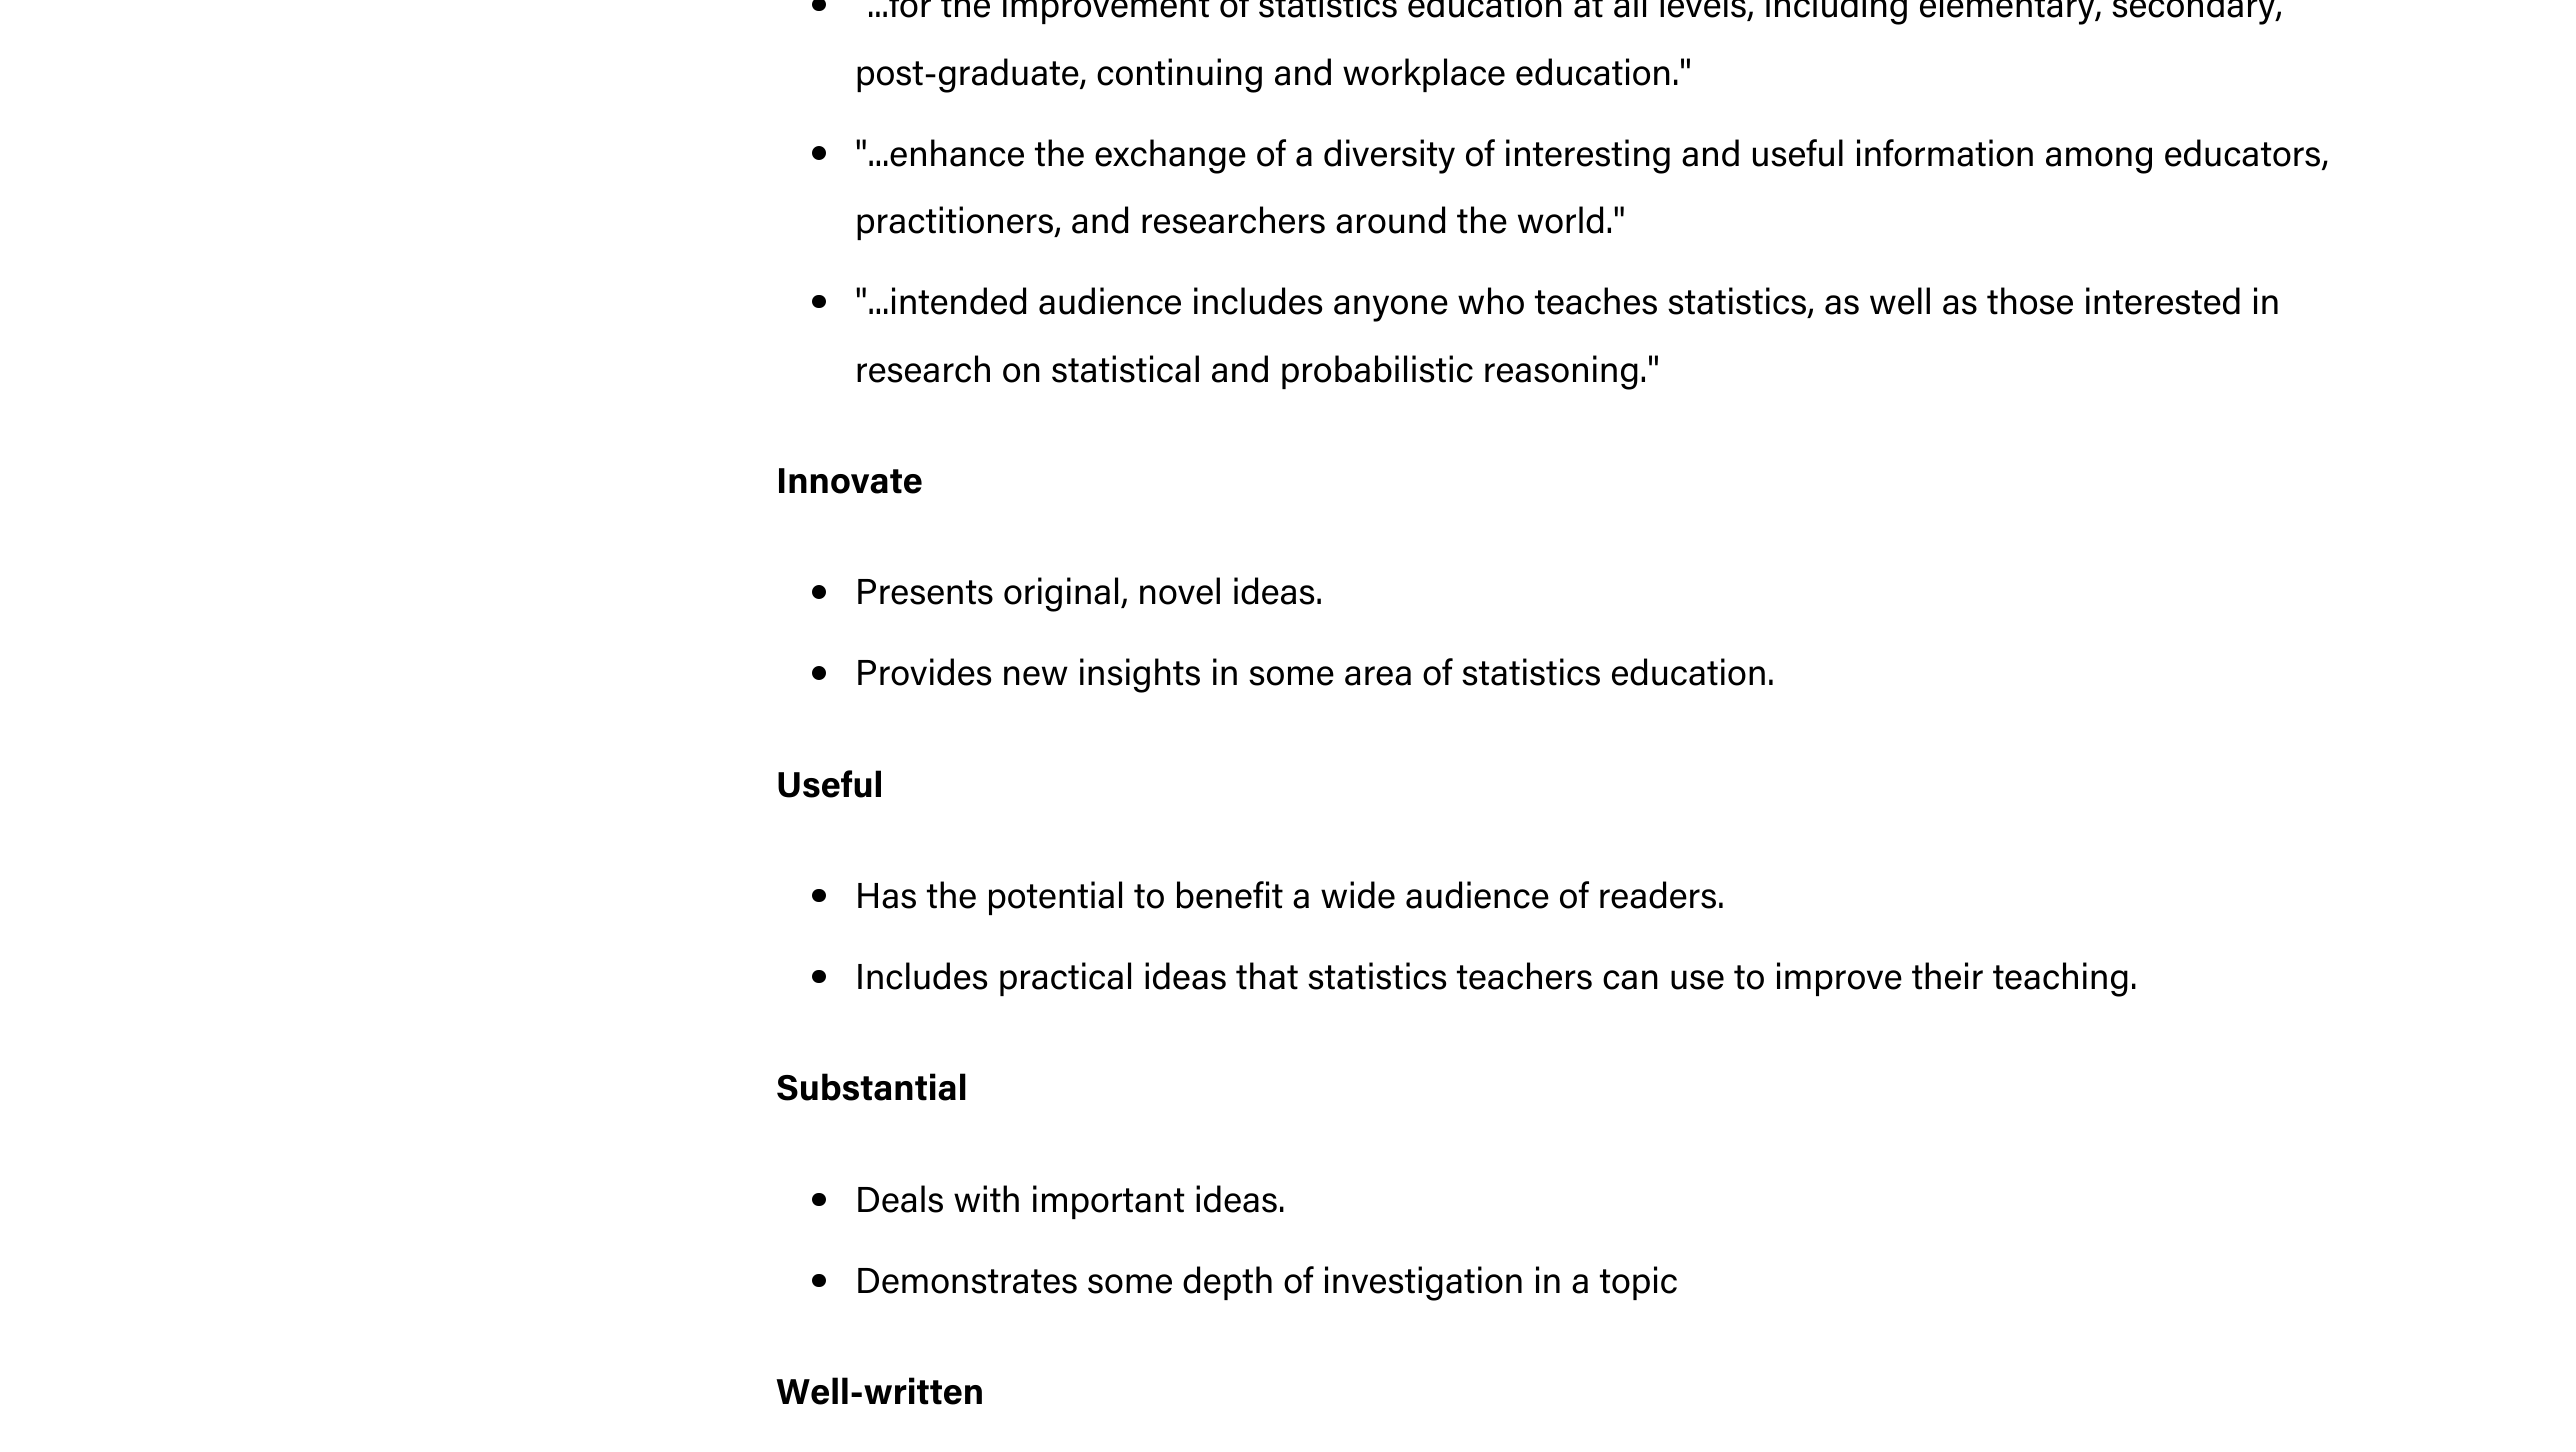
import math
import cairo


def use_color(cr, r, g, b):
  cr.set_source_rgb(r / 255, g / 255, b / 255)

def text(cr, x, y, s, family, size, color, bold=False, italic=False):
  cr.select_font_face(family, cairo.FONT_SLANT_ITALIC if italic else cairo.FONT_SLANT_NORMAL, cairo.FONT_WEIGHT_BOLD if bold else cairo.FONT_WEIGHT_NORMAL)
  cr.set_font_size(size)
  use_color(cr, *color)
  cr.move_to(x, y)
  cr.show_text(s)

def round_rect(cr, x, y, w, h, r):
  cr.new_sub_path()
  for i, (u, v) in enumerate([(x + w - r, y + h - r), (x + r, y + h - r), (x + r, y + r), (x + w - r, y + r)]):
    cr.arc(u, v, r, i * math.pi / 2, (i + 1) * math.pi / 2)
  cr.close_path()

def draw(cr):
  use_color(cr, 255, 255, 255)
  cr.paint()
  use_color(cr, 0, 0, 0)
  round_rect(cr, 812, -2, 14, 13, 6.5)
  cr.fill()
  cr.arc(819, 153, 7, 0, 2 * math.pi)
  cr.fill()
  round_rect(cr, 812, 295, 14, 13, 6.5)
  cr.fill()
  cr.arc(819, 592, 7, 0, 2 * math.pi)
  cr.fill()
  cr.arc(819, 673, 7, 0, 2 * math.pi)
  cr.fill()
  round_rect(cr, 812, 889, 14, 13, 6.5)
  cr.fill()
  round_rect(cr, 812, 970, 14, 13, 6.5)
  cr.fill()
  round_rect(cr, 812, 1193, 14, 13, 6.5)
  cr.fill()
  round_rect(cr, 812, 1274, 14, 13, 6.5)
  cr.fill()
  text(cr, 867, 17, "...for the improvement of statistics education at all levels, including elementary, secondary,", "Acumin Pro", 36, (0, 0, 0))
  text(cr, 855, 85, "post-graduate, continuing and workplace education.\"", "Acumin Pro", 36, (0, 0, 0))
  text(cr, 855, 166, "\"...enhance the exchange of a diversity of interesting and useful information among educators,", "Acumin Pro", 36, (0, 0, 0))
  text(cr, 855, 233, "practitioners, and researchers around the world.\"", "Acumin Pro", 36, (0, 0, 0))
  text(cr, 855, 314, "\"...intended audience includes anyone who teaches statistics, as well as those interested in", "Acumin Pro", 36, (0, 0, 0))
  text(cr, 855, 382, "research on statistical and probabilistic reasoning.\"", "Acumin Pro", 36, (0, 0, 0))
  text(cr, 776, 493, "Innovate", "Acumin Pro", 36, (0, 0, 0), bold=True)
  text(cr, 855, 604, "Presents original, novel ideas.", "Acumin Pro", 36, (0, 0, 0))
  text(cr, 855, 685, "Provides new insights in some area of statistics education.", "Acumin Pro", 36, (0, 0, 0))
  text(cr, 776, 797, "Useful", "Acumin Pro", 36, (0, 0, 0), bold=True)
  text(cr, 855, 908, "Has the potential to benefit a wide audience of readers.", "Acumin Pro", 36, (0, 0, 0))
  text(cr, 855, 989, "Includes practical ideas that statistics teachers can use to improve their teaching.", "Acumin Pro", 36, (0, 0, 0))
  text(cr, 776, 1100, "Substantial", "Acumin Pro", 36, (0, 0, 0), bold=True)
  text(cr, 855, 1212, "Deals with important ideas.", "Acumin Pro", 36, (0, 0, 0))
  text(cr, 855, 1293, "Demonstrates some depth of investigation in a topic", "Acumin Pro", 36, (0, 0, 0))
  text(cr, 776, 1404, "Well-written", "Acumin Pro", 36, (0, 0, 0), bold=True)


surface = cairo.ImageSurface(cairo.FORMAT_RGB24, 2576, 1452)
cr = cairo.Context(surface)
options = cairo.FontOptions()
options.set_hint_metrics(cairo.HINT_METRICS_OFF)
options.set_hint_style(cairo.HINT_STYLE_NONE)
cr.set_font_options(options)
cr.set_miter_limit(4)
draw(cr)
surface.write_to_png("out.png")
